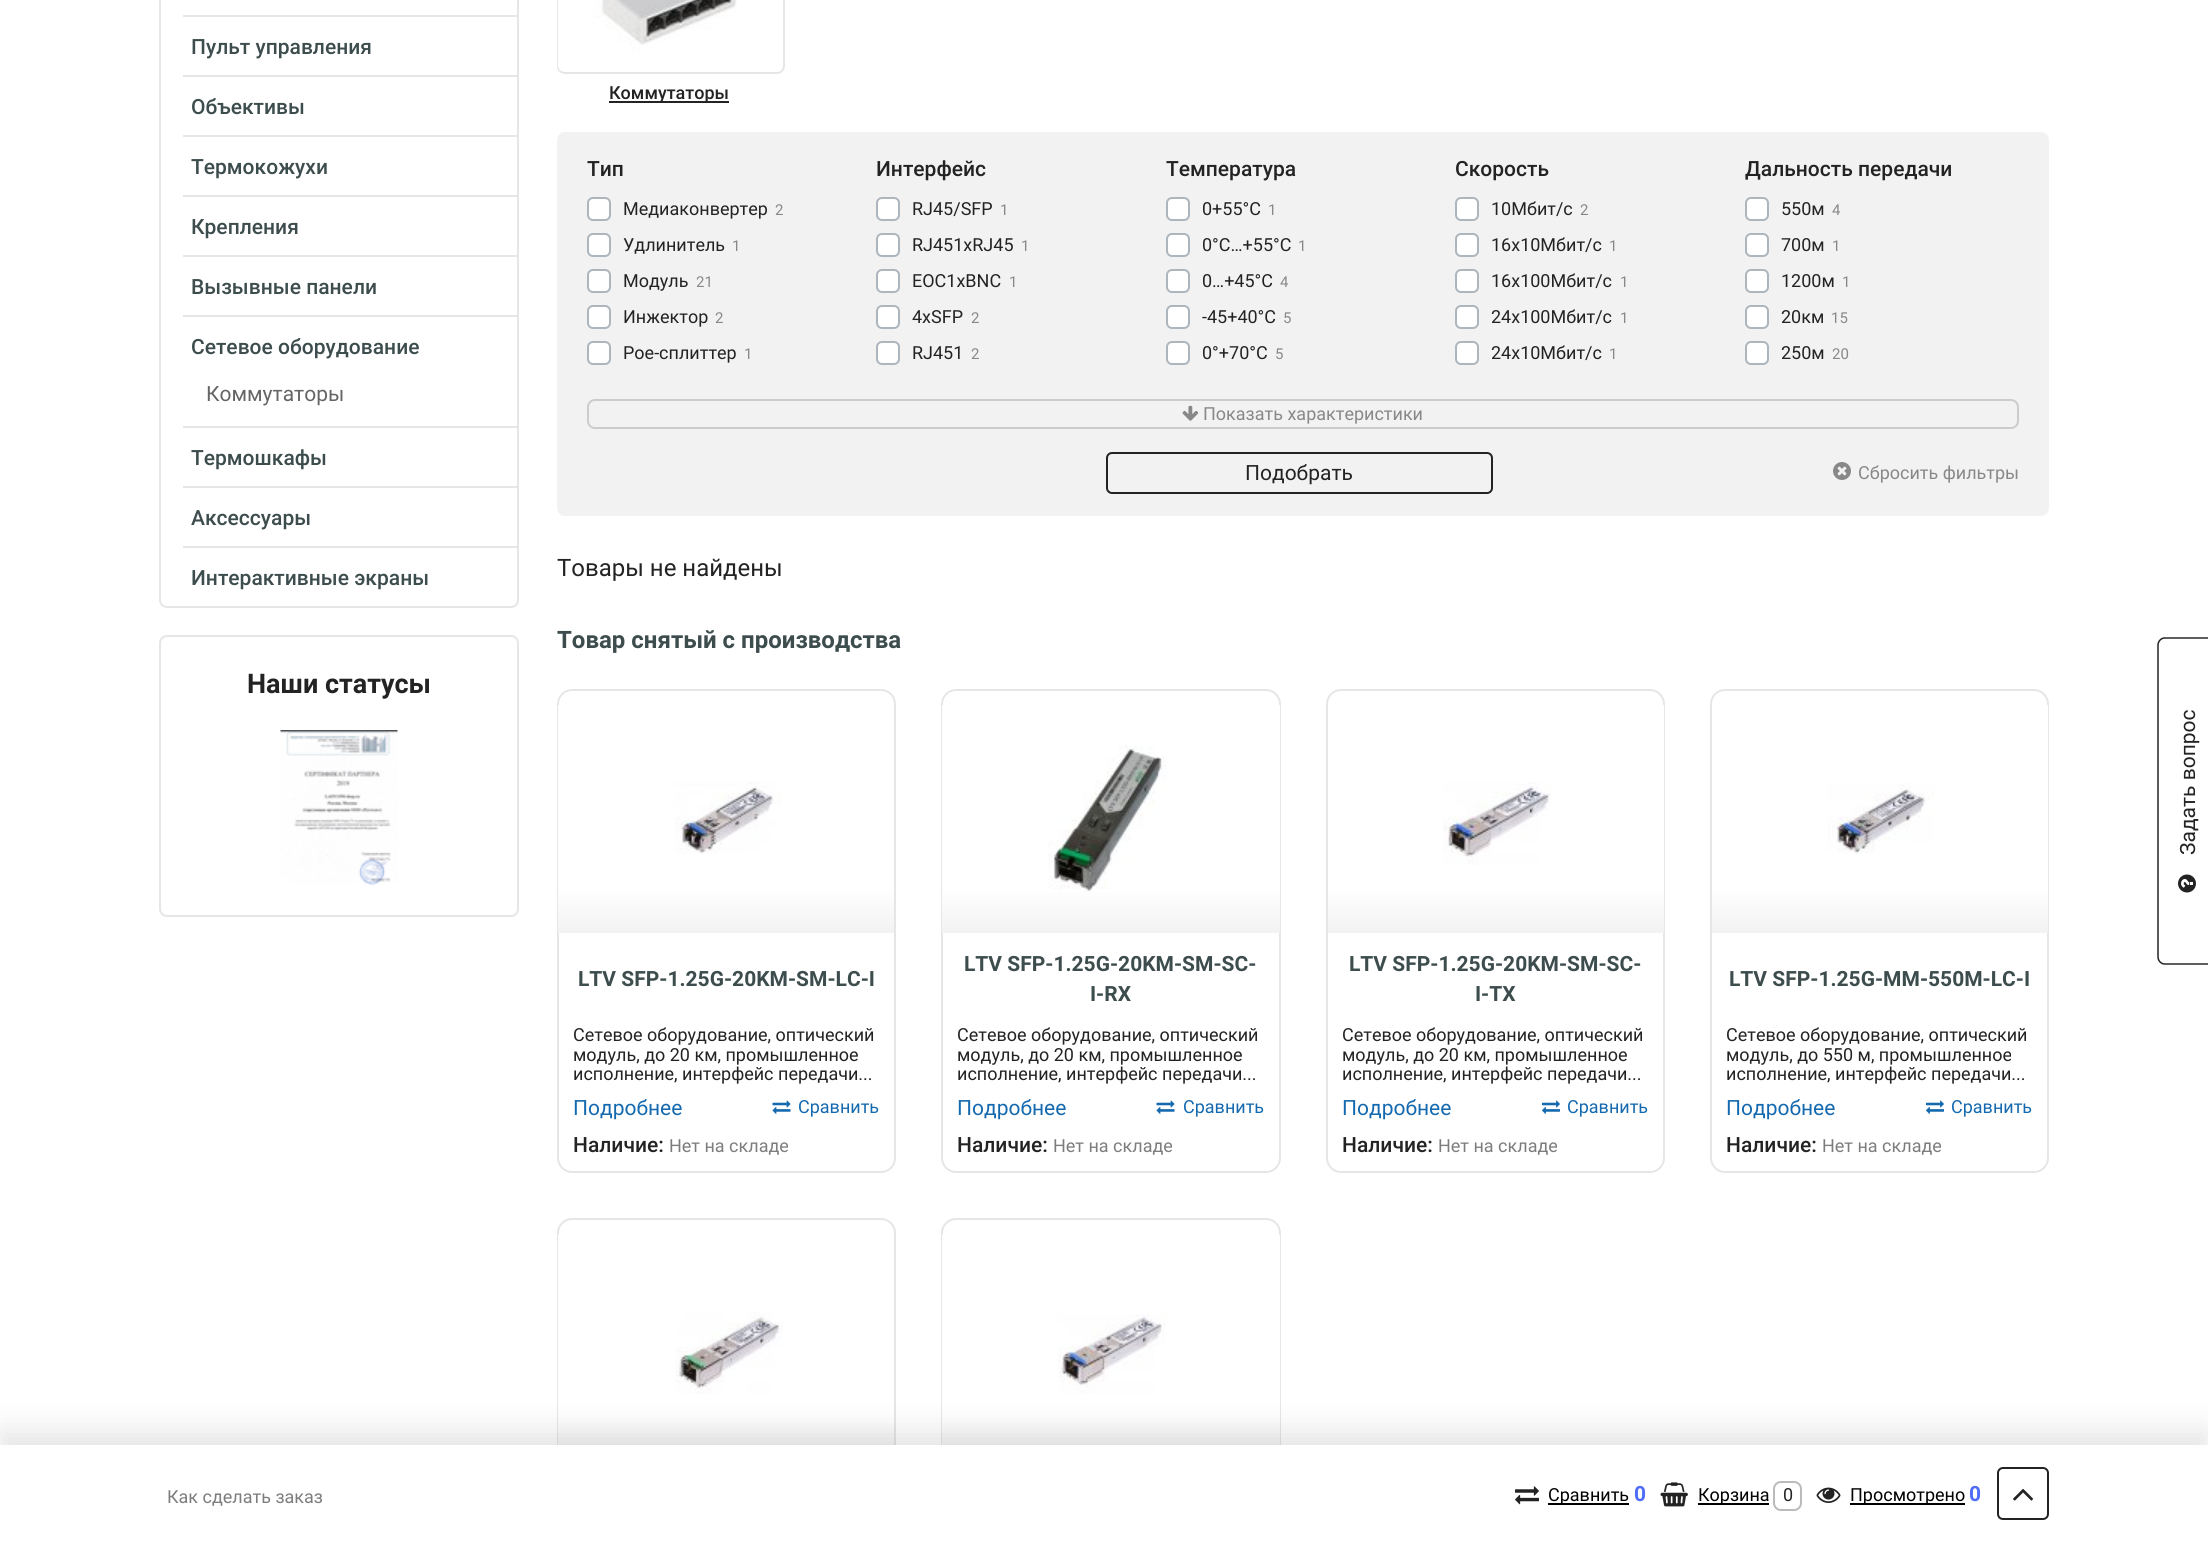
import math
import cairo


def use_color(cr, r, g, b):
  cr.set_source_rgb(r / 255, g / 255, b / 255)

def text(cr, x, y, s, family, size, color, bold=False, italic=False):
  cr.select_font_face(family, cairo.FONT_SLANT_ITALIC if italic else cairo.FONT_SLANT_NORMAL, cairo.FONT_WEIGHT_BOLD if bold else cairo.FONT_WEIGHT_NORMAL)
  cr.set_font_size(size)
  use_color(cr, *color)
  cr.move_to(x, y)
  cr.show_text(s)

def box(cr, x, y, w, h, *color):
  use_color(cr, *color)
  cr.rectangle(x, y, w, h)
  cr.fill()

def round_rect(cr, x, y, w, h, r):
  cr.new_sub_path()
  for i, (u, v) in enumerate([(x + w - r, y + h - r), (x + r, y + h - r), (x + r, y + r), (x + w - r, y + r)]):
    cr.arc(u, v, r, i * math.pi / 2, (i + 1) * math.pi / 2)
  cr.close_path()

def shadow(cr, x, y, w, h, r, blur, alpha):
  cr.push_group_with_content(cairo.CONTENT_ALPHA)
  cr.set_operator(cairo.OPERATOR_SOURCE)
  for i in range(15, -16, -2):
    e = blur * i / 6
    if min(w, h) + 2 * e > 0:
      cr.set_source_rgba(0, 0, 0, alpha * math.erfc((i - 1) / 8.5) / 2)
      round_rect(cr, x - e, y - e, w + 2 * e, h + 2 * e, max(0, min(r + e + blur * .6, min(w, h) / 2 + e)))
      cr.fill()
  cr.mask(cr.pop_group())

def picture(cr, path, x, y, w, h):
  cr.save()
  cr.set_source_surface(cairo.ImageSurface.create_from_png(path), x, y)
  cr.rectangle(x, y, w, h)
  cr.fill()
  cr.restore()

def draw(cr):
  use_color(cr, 255, 255, 255)
  cr.paint()
  cr.new_path()
  cr.move_to(160, -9)
  cr.line_to(518, -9)
  cr.line_to(518, 600)
  cr.curve_to(518, 604, 515, 607, 511, 607)
  cr.line_to(167, 607)
  cr.curve_to(163, 607, 160, 604, 160, 600)
  cr.close_path()
  use_color(cr, 230, 230, 230)
  cr.stroke()
  box(cr, 183, 15, 335, 2, 230, 230, 230)
  box(cr, 183, 75, 335, 2, 230, 230, 230)
  box(cr, 183, 135, 335, 2, 230, 230, 230)
  box(cr, 183, 195, 335, 2, 230, 230, 230)
  box(cr, 183, 255, 335, 2, 230, 230, 230)
  box(cr, 183, 315, 335, 2, 230, 230, 230)
  box(cr, 183, 426, 335, 2, 230, 230, 230)
  box(cr, 183, 486, 335, 2, 230, 230, 230)
  box(cr, 183, 546, 335, 2, 230, 230, 230)
  round_rect(cr, 160, 636, 358, 280, 7)
  cr.stroke()
  picture(cr, "img_01.png", 280, 730, 118, 155)
  round_rect(cr, 558, -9, 226, 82, 7)
  cr.stroke()
  picture(cr, "img_02.png", 558, 0, 179, 71)
  box(cr, 609, 101, 120, 2, 35, 35, 35)
  use_color(cr, 242, 242, 242)
  round_rect(cr, 557, 132, 1492, 384, 8)
  cr.fill()
  use_color(cr, 255, 255, 255)
  round_rect(cr, 588, 198, 22, 22, 5)
  cr.fill_preserve()
  use_color(cr, 173, 181, 189)
  cr.stroke()
  use_color(cr, 255, 255, 255)
  round_rect(cr, 588, 234, 22, 22, 5)
  cr.fill_preserve()
  use_color(cr, 173, 181, 189)
  cr.stroke()
  use_color(cr, 255, 255, 255)
  round_rect(cr, 588, 270, 22, 22, 5)
  cr.fill_preserve()
  use_color(cr, 173, 181, 189)
  cr.stroke()
  use_color(cr, 255, 255, 255)
  round_rect(cr, 588, 306, 22, 22, 5)
  cr.fill_preserve()
  use_color(cr, 173, 181, 189)
  cr.stroke()
  use_color(cr, 255, 255, 255)
  round_rect(cr, 588, 342, 22, 22, 5)
  cr.fill_preserve()
  use_color(cr, 173, 181, 189)
  cr.stroke()
  use_color(cr, 255, 255, 255)
  round_rect(cr, 877, 198, 22, 22, 5)
  cr.fill_preserve()
  use_color(cr, 173, 181, 189)
  cr.stroke()
  use_color(cr, 255, 255, 255)
  round_rect(cr, 877, 234, 22, 22, 5)
  cr.fill_preserve()
  use_color(cr, 173, 181, 189)
  cr.stroke()
  use_color(cr, 255, 255, 255)
  round_rect(cr, 877, 270, 22, 22, 5)
  cr.fill_preserve()
  use_color(cr, 173, 181, 189)
  cr.stroke()
  use_color(cr, 255, 255, 255)
  round_rect(cr, 877, 306, 22, 22, 5)
  cr.fill_preserve()
  use_color(cr, 173, 181, 189)
  cr.stroke()
  use_color(cr, 255, 255, 255)
  round_rect(cr, 877, 342, 22, 22, 5)
  cr.fill_preserve()
  use_color(cr, 173, 181, 189)
  cr.stroke()
  use_color(cr, 255, 255, 255)
  round_rect(cr, 1167, 198, 22, 22, 5)
  cr.fill_preserve()
  use_color(cr, 173, 181, 189)
  cr.stroke()
  use_color(cr, 255, 255, 255)
  round_rect(cr, 1167, 234, 22, 22, 5)
  cr.fill_preserve()
  use_color(cr, 173, 181, 189)
  cr.stroke()
  use_color(cr, 255, 255, 255)
  round_rect(cr, 1167, 270, 22, 22, 5)
  cr.fill_preserve()
  use_color(cr, 173, 181, 189)
  cr.stroke()
  use_color(cr, 255, 255, 255)
  round_rect(cr, 1167, 306, 22, 22, 5)
  cr.fill_preserve()
  use_color(cr, 173, 181, 189)
  cr.stroke()
  use_color(cr, 255, 255, 255)
  round_rect(cr, 1167, 342, 22, 22, 5)
  cr.fill_preserve()
  use_color(cr, 173, 181, 189)
  cr.stroke()
  use_color(cr, 255, 255, 255)
  round_rect(cr, 1456, 198, 22, 22, 5)
  cr.fill_preserve()
  use_color(cr, 173, 181, 189)
  cr.stroke()
  use_color(cr, 255, 255, 255)
  round_rect(cr, 1456, 234, 22, 22, 5)
  cr.fill_preserve()
  use_color(cr, 173, 181, 189)
  cr.stroke()
  use_color(cr, 255, 255, 255)
  round_rect(cr, 1456, 270, 22, 22, 5)
  cr.fill_preserve()
  use_color(cr, 173, 181, 189)
  cr.stroke()
  use_color(cr, 255, 255, 255)
  round_rect(cr, 1456, 306, 22, 22, 5)
  cr.fill_preserve()
  use_color(cr, 173, 181, 189)
  cr.stroke()
  use_color(cr, 255, 255, 255)
  round_rect(cr, 1456, 342, 22, 22, 5)
  cr.fill_preserve()
  use_color(cr, 173, 181, 189)
  cr.stroke()
  use_color(cr, 255, 255, 255)
  round_rect(cr, 1746, 198, 22, 22, 5)
  cr.fill_preserve()
  use_color(cr, 173, 181, 189)
  cr.stroke()
  use_color(cr, 255, 255, 255)
  round_rect(cr, 1746, 234, 22, 22, 5)
  cr.fill_preserve()
  use_color(cr, 173, 181, 189)
  cr.stroke()
  use_color(cr, 255, 255, 255)
  round_rect(cr, 1746, 270, 22, 22, 5)
  cr.fill_preserve()
  use_color(cr, 173, 181, 189)
  cr.stroke()
  use_color(cr, 255, 255, 255)
  round_rect(cr, 1746, 306, 22, 22, 5)
  cr.fill_preserve()
  use_color(cr, 173, 181, 189)
  cr.stroke()
  use_color(cr, 255, 255, 255)
  round_rect(cr, 1746, 342, 22, 22, 5)
  cr.fill_preserve()
  use_color(cr, 173, 181, 189)
  cr.stroke()
  round_rect(cr, 588, 400, 1430, 28, 7)
  use_color(cr, 204, 204, 204)
  cr.stroke()
  picture(cr, "img_03.png", 1182, 405, 17, 16)
  round_rect(cr, 1107, 453, 385, 40, 5)
  use_color(cr, 35, 35, 35)
  cr.stroke()
  picture(cr, "img_04.png", 1833, 462, 18, 18)
  round_rect(cr, 558, 690, 337, 482, 14)
  use_color(cr, 230, 230, 230)
  cr.stroke()
  gradient = cairo.LinearGradient(726, 933, 726, 705)
  gradient.add_color_stop_rgba(0, 0.949, 0.949, 0.949, 1)
  gradient.add_color_stop_rgba(0.2, 1, 1, 1, 1)
  cr.set_source(gradient)
  cr.rectangle(558, 705, 336, 228)
  cr.fill()
  picture(cr, "img_05.png", 674, 781, 107, 73)
  picture(cr, "img_06.png", 772, 1100, 19, 14)
  round_rect(cr, 942, 690, 338, 482, 14)
  use_color(cr, 230, 230, 230)
  cr.stroke()
  gradient = cairo.LinearGradient(1111, 933, 1111, 705)
  gradient.add_color_stop_rgba(0, 0.949, 0.949, 0.949, 1)
  gradient.add_color_stop_rgba(0.2, 1, 1, 1, 1)
  cr.set_source(gradient)
  cr.rectangle(942, 705, 338, 228)
  cr.fill()
  picture(cr, "img_07.png", 1048, 745, 119, 147)
  picture(cr, "img_06.png", 1156, 1100, 19, 14)
  round_rect(cr, 1327, 690, 337, 482, 14)
  use_color(cr, 230, 230, 230)
  cr.stroke()
  gradient = cairo.LinearGradient(1496, 933, 1496, 705)
  gradient.add_color_stop_rgba(0, 0.949, 0.949, 0.949, 1)
  gradient.add_color_stop_rgba(0.2, 1, 1, 1, 1)
  cr.set_source(gradient)
  cr.rectangle(1328, 705, 336, 228)
  cr.fill()
  picture(cr, "img_08.png", 1443, 782, 108, 83)
  picture(cr, "img_09.png", 1542, 1100, 18, 14)
  round_rect(cr, 1711, 690, 337, 482, 14)
  use_color(cr, 230, 230, 230)
  cr.stroke()
  gradient = cairo.LinearGradient(1880, 933, 1880, 705)
  gradient.add_color_stop_rgba(0, 0.949, 0.949, 0.949, 1)
  gradient.add_color_stop_rgba(0.2, 1, 1, 1, 1)
  cr.set_source(gradient)
  cr.rectangle(1712, 705, 336, 228)
  cr.fill()
  picture(cr, "img_10.png", 1827, 783, 107, 71)
  picture(cr, "img_09.png", 1926, 1100, 18, 14)
  round_rect(cr, 558, 1219, 337, 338, 14)
  use_color(cr, 230, 230, 230)
  cr.stroke()
  gradient = cairo.LinearGradient(726, 1463, 726, 1235)
  gradient.add_color_stop_rgba(0, 0.949, 0.949, 0.949, 1)
  gradient.add_color_stop_rgba(0.2, 1, 1, 1, 1)
  cr.set_source(gradient)
  cr.rectangle(558, 1235, 336, 210)
  cr.fill()
  picture(cr, "img_11.png", 675, 1311, 108, 83)
  round_rect(cr, 942, 1219, 338, 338, 14)
  use_color(cr, 230, 230, 230)
  cr.stroke()
  gradient = cairo.LinearGradient(1111, 1463, 1111, 1235)
  gradient.add_color_stop_rgba(0, 0.949, 0.949, 0.949, 1)
  gradient.add_color_stop_rgba(0.2, 1, 1, 1, 1)
  cr.set_source(gradient)
  cr.rectangle(942, 1235, 338, 210)
  cr.fill()
  picture(cr, "img_12.png", 1058, 1314, 108, 80)
  cr.new_path()
  cr.move_to(2158, 957)
  cr.line_to(2158, 645)
  cr.curve_to(2158, 641.5, 2161, 638, 2164.5, 638)
  cr.line_to(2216, 638)
  cr.line_to(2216, 964)
  cr.line_to(2164.5, 964)
  cr.curve_to(2161, 964, 2158, 960.5, 2158, 957)
  cr.close_path()
  use_color(cr, 35, 35, 35)
  cr.set_line_width(1.5)
  cr.stroke()
  picture(cr, "img_13.png", 2178, 874, 18, 19)
  use_color(cr, 0, 0, 0)
  shadow(cr, 0, 1430, 2208, 97, 0, 15, 0.1)
  box(cr, 0, 1445, 2208, 96, 255, 255, 255)
  picture(cr, "img_14.png", 1515, 1486, 24, 19)
  box(cr, 1548, 1503, 81, 2, 0, 0, 0)
  picture(cr, "img_15.png", 1660, 1482, 28, 25)
  box(cr, 1698, 1503, 71, 2, 0, 0, 0)
  round_rect(cr, 1774, 1482, 27, 28, 7)
  use_color(cr, 187, 187, 187)
  cr.set_line_width(2)
  cr.stroke()
  picture(cr, "img_16.png", 1816, 1487, 25, 16)
  box(cr, 1850, 1503, 115, 2, 0, 0, 0)
  round_rect(cr, 1998, 1468, 50, 51, 5)
  use_color(cr, 35, 35, 35)
  cr.stroke()
  picture(cr, "img_17.png", 2013, 1489, 20, 12)
  text(cr, 191, 54, "Пульт управления", "Roboto Medium", 21, (61, 76, 77))
  text(cr, 191, 114, "Объективы", "Roboto Medium", 21, (61, 76, 77))
  text(cr, 191, 174, "Термокожухи", "Roboto Medium", 21, (61, 76, 77))
  text(cr, 191, 234, "Крепления", "Roboto Medium", 21, (61, 76, 77))
  text(cr, 191, 294, "Вызывные панели", "Roboto Medium", 21, (61, 76, 77))
  text(cr, 191, 354, "Сетевое оборудование", "Roboto Medium", 21, (61, 76, 77))
  text(cr, 206, 401, "Коммутаторы", "Roboto", 21, (101, 101, 101))
  text(cr, 191, 465, "Термошкафы", "Roboto Medium", 21, (61, 76, 77))
  text(cr, 191, 525, "Аксессуары", "Roboto Medium", 21, (61, 76, 77))
  text(cr, 191, 585, "Интерактивные экраны", "Roboto Medium", 21, (61, 76, 77))
  text(cr, 247, 693, "Наши статусы", "Roboto", 27, (35, 35, 35), bold=True)
  text(cr, 609, 99, "Коммутаторы", "Roboto Medium", 18, (35, 35, 35))
  text(cr, 587, 176, "Тип", "Roboto Medium", 21, (35, 35, 35))
  text(cr, 623, 215, "Медиаконвертер", "Roboto", 18, (35, 35, 35))
  text(cr, 775, 215, "2", "Roboto", 15, (136, 136, 136))
  text(cr, 623, 251, "Удлинитель", "Roboto", 18, (35, 35, 35))
  text(cr, 732, 251, "1", "Roboto", 15, (136, 136, 136))
  text(cr, 623, 287, "Модуль", "Roboto", 18, (35, 35, 35))
  text(cr, 696, 287, "21", "Roboto", 15, (136, 136, 136))
  text(cr, 623, 323, "Инжектор", "Roboto", 18, (35, 35, 35))
  text(cr, 715, 323, "2", "Roboto", 15, (136, 136, 136))
  text(cr, 623, 359, "Poe-сплиттер", "Roboto", 18, (35, 35, 35))
  text(cr, 744, 359, "1", "Roboto", 15, (136, 136, 136))
  text(cr, 876, 176, "Интерфейс", "Roboto Medium", 21, (35, 35, 35))
  text(cr, 912, 215, "RJ45/SFP", "Roboto", 18, (35, 35, 35))
  text(cr, 1000, 215, "1", "Roboto", 15, (136, 136, 136))
  text(cr, 912, 251, "RJ451xRJ45", "Roboto", 18, (35, 35, 35))
  text(cr, 1021, 251, "1", "Roboto", 15, (136, 136, 136))
  text(cr, 912, 287, "EOC1xBNC", "Roboto", 18, (35, 35, 35))
  text(cr, 1009, 287, "1", "Roboto", 15, (136, 136, 136))
  text(cr, 912, 323, "4xSFP", "Roboto", 18, (35, 35, 35))
  text(cr, 971, 323, "2", "Roboto", 15, (136, 136, 136))
  text(cr, 912, 359, "RJ451", "Roboto", 18, (35, 35, 35))
  text(cr, 971, 359, "2", "Roboto", 15, (136, 136, 136))
  text(cr, 1166, 176, "Температура", "Roboto Medium", 21, (35, 35, 35))
  text(cr, 1202, 215, "0+55°C", "Roboto", 18, (35, 35, 35))
  text(cr, 1268, 215, "1", "Roboto", 15, (136, 136, 136))
  text(cr, 1202, 251, "0°C…+55°C", "Roboto", 18, (35, 35, 35))
  text(cr, 1298, 251, "1", "Roboto", 15, (136, 136, 136))
  text(cr, 1202, 287, "0…+45°C", "Roboto", 18, (35, 35, 35))
  text(cr, 1280, 287, "4", "Roboto", 15, (136, 136, 136))
  text(cr, 1202, 323, "-45+40°C", "Roboto", 18, (35, 35, 35))
  text(cr, 1283, 323, "5", "Roboto", 15, (136, 136, 136))
  text(cr, 1202, 359, "0°+70°C", "Roboto", 18, (35, 35, 35))
  text(cr, 1275, 359, "5", "Roboto", 15, (136, 136, 136))
  text(cr, 1455, 176, "Cкорость", "Roboto Medium", 21, (35, 35, 35))
  text(cr, 1491, 215, "10Мбит/с", "Roboto", 18, (35, 35, 35))
  text(cr, 1580, 215, "2", "Roboto", 15, (136, 136, 136))
  text(cr, 1491, 251, "16x10Мбит/с", "Roboto", 18, (35, 35, 35))
  text(cr, 1609, 251, "1", "Roboto", 15, (136, 136, 136))
  text(cr, 1491, 287, "16x100Мбит/с", "Roboto", 18, (35, 35, 35))
  text(cr, 1620, 287, "1", "Roboto", 15, (136, 136, 136))
  text(cr, 1491, 323, "24x100Мбит/с", "Roboto", 18, (35, 35, 35))
  text(cr, 1620, 323, "1", "Roboto", 15, (136, 136, 136))
  text(cr, 1491, 359, "24x10Мбит/с", "Roboto", 18, (35, 35, 35))
  text(cr, 1609, 359, "1", "Roboto", 15, (136, 136, 136))
  text(cr, 1745, 176, "Дальность передачи", "Roboto Medium", 21, (35, 35, 35))
  text(cr, 1781, 215, "550м", "Roboto", 18, (35, 35, 35))
  text(cr, 1832, 215, "4", "Roboto", 15, (136, 136, 136))
  text(cr, 1781, 251, "700м", "Roboto", 18, (35, 35, 35))
  text(cr, 1832, 251, "1", "Roboto", 15, (136, 136, 136))
  text(cr, 1781, 287, "1200м", "Roboto", 18, (35, 35, 35))
  text(cr, 1842, 287, "1", "Roboto", 15, (136, 136, 136))
  text(cr, 1781, 323, "20км", "Roboto", 18, (35, 35, 35))
  text(cr, 1831, 323, "15", "Roboto", 15, (136, 136, 136))
  text(cr, 1781, 359, "250м", "Roboto", 18, (35, 35, 35))
  text(cr, 1832, 359, "20", "Roboto", 15, (136, 136, 136))
  text(cr, 1203, 420, "Показать характеристики", "Roboto", 18, (136, 136, 136))
  text(cr, 1245, 480, "Подобрать", "Roboto", 21, (35, 35, 35))
  text(cr, 1858, 479, "Сбросить фильтры", "Roboto", 18, (136, 136, 136))
  text(cr, 557, 576, "Товары не найдены", "Roboto", 24, (35, 35, 35))
  text(cr, 557, 648, "Товар снятый с производства", "Roboto", 24, (61, 76, 77), bold=True)
  text(cr, 578, 986, "LTV SFP-1.25G-20KM-SM-LC-I", "Roboto", 21, (61, 76, 77), bold=True)
  text(cr, 573, 1041, "Сетевое оборудование, оптический", "Roboto", 18, (35, 35, 35))
  text(cr, 573, 1061, "модуль, до 20 км, промышленное", "Roboto", 18, (35, 35, 35))
  text(cr, 573, 1080, "исполнение, интерфейс передачи...", "Roboto", 18, (35, 35, 35))
  text(cr, 573, 1115, "Подробнее", "Roboto", 21, (20, 105, 175))
  text(cr, 798, 1113, "Сравнить", "Roboto", 18, (20, 105, 175))
  text(cr, 573, 1152, "Наличие:", "Roboto Medium", 21, (35, 35, 35))
  text(cr, 669, 1152, "Нет на складе", "Roboto", 18, (125, 125, 125))
  text(cr, 964, 971, "LTV SFP-1.25G-20KM-SM-SC-", "Roboto", 21, (61, 76, 77), bold=True)
  text(cr, 1090, 1001, "I-RX", "Roboto", 21, (61, 76, 77), bold=True)
  text(cr, 957, 1041, "Сетевое оборудование, оптический", "Roboto", 18, (35, 35, 35))
  text(cr, 957, 1061, "модуль, до 20 км, промышленное", "Roboto", 18, (35, 35, 35))
  text(cr, 957, 1080, "исполнение, интерфейс передачи...", "Roboto", 18, (35, 35, 35))
  text(cr, 957, 1115, "Подробнее", "Roboto", 21, (20, 105, 175))
  text(cr, 1183, 1113, "Сравнить", "Roboto", 18, (20, 105, 175))
  text(cr, 957, 1152, "Наличие:", "Roboto Medium", 21, (35, 35, 35))
  text(cr, 1053, 1152, "Нет на складе", "Roboto", 18, (125, 125, 125))
  text(cr, 1349, 971, "LTV SFP-1.25G-20KM-SM-SC-", "Roboto", 21, (61, 76, 77), bold=True)
  text(cr, 1475, 1001, "I-TX", "Roboto", 21, (61, 76, 77), bold=True)
  cr.save()
  cr.rectangle(1343, 1026, 313, 60)
  cr.clip()
  text(cr, 1342, 1041, "Сетевое оборудование, оптический", "Roboto", 18, (35, 35, 35))
  cr.restore()
  text(cr, 1342, 1061, "модуль, до 20 км, промышленное", "Roboto", 18, (35, 35, 35))
  text(cr, 1342, 1080, "исполнение, интерфейс передачи...", "Roboto", 18, (35, 35, 35))
  text(cr, 1342, 1115, "Подробнее", "Roboto", 21, (20, 105, 175))
  text(cr, 1567, 1113, "Сравнить", "Roboto", 18, (20, 105, 175))
  text(cr, 1342, 1152, "Наличие:", "Roboto Medium", 21, (35, 35, 35))
  text(cr, 1438, 1152, "Нет на складе", "Roboto", 18, (125, 125, 125))
  text(cr, 1729, 986, "LTV SFP-1.25G-MM-550M-LC-I", "Roboto", 21, (61, 76, 77), bold=True)
  text(cr, 1726, 1041, "Сетевое оборудование, оптический", "Roboto", 18, (35, 35, 35))
  text(cr, 1726, 1061, "модуль, до 550 м, промышленное", "Roboto", 18, (35, 35, 35))
  text(cr, 1726, 1080, "исполнение, интерфейс передачи...", "Roboto", 18, (35, 35, 35))
  text(cr, 1726, 1115, "Подробнее", "Roboto", 21, (20, 105, 175))
  text(cr, 1951, 1113, "Сравнить", "Roboto", 18, (20, 105, 175))
  text(cr, 1726, 1152, "Наличие:", "Roboto Medium", 21, (35, 35, 35))
  text(cr, 1822, 1152, "Нет на складе", "Roboto", 18, (125, 125, 125))
  cr.save()
  cr.translate(2195, 855)
  cr.rotate(-90 * math.pi / 180)
  text(cr, 0, 0, "Задать вопрос", "Roboto", 21, (35, 35, 35))
  cr.restore()
  text(cr, 167, 1503, "Как сделать заказ", "Roboto", 18, (125, 125, 125))
  text(cr, 1548, 1501, "Сравнить", "Roboto", 18, (0, 0, 0))
  text(cr, 1634, 1501, "0", "Roboto", 21, (80, 109, 249), bold=True)
  text(cr, 1698, 1501, "Корзина", "Roboto", 18, (0, 0, 0))
  text(cr, 1783, 1501, "0", "Roboto", 18, (35, 35, 35))
  text(cr, 1850, 1501, "Просмотрено", "Roboto", 18, (0, 0, 0))
  text(cr, 1969, 1501, "0", "Roboto", 21, (80, 109, 249), bold=True)


surface = cairo.ImageSurface(cairo.FORMAT_RGB24, 2208, 1541)
cr = cairo.Context(surface)
options = cairo.FontOptions()
options.set_hint_metrics(cairo.HINT_METRICS_OFF)
options.set_hint_style(cairo.HINT_STYLE_NONE)
cr.set_font_options(options)
cr.set_miter_limit(4)
draw(cr)
surface.write_to_png("out.png")
